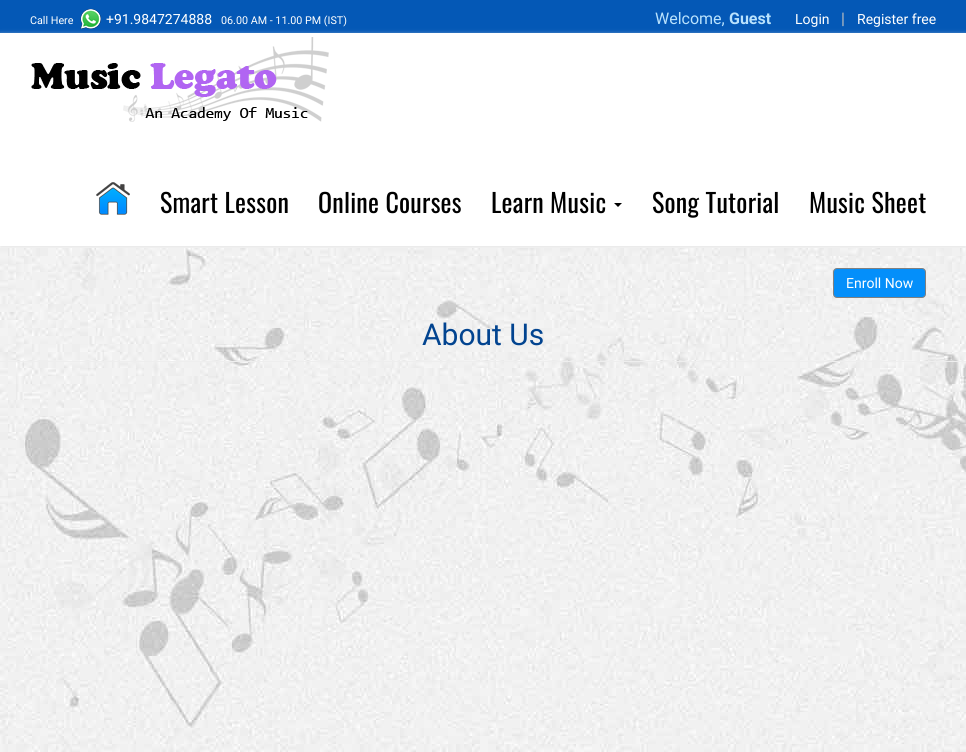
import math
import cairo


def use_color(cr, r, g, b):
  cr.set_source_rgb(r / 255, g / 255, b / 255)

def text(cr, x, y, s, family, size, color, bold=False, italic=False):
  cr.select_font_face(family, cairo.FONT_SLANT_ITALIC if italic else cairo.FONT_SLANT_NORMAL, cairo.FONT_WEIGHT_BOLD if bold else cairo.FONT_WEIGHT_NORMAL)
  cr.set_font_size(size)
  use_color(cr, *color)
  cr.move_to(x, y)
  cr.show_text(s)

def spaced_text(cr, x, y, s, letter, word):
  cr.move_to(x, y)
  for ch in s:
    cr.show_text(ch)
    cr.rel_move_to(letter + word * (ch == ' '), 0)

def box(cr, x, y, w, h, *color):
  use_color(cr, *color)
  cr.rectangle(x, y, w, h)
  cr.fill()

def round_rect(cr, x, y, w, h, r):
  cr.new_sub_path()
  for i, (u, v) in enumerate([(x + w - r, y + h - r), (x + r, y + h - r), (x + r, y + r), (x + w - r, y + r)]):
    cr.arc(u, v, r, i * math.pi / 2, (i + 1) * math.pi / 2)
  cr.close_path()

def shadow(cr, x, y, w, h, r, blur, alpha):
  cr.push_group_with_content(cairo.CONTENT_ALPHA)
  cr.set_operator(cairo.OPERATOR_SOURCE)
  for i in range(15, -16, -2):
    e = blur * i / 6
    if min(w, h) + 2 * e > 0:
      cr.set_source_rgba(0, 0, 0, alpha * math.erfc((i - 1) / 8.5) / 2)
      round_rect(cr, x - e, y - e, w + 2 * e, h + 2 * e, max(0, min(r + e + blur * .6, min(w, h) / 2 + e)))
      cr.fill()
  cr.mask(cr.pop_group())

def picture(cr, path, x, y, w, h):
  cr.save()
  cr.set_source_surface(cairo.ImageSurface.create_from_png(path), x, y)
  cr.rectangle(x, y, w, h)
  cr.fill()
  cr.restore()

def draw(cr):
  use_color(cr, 255, 255, 255)
  cr.paint()
  box(cr, 0, 0, 966, 33, 4, 88, 182)
  cr.save()
  cr.set_fill_rule(cairo.FILL_RULE_EVEN_ODD)
  cr.new_path()
  cr.move_to(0, 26)
  cr.line_to(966, 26)
  cr.line_to(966, 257)
  cr.line_to(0, 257)
  cr.close_path()
  cr.move_to(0, 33)
  cr.line_to(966, 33)
  cr.line_to(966, 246)
  cr.line_to(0, 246)
  cr.close_path()
  cr.clip()
  use_color(cr, 227, 227, 227)
  shadow(cr, 0, 35, 966, 213, 0, 2.5, 1)
  cr.restore()
  picture(cr, "img_01.png", 80, 9, 21, 20)
  picture(cr, "img_02.png", 31, 37, 298, 85)
  picture(cr, "img_03.png", 96, 182, 34, 33)
  use_color(cr, 0, 0, 0)
  cr.new_path()
  cr.move_to(614, 203)
  cr.line_to(622, 203)
  cr.line_to(618, 207)
  cr.close_path()
  cr.fill()
  picture(cr, "img_04.png", 0, 248, 966, 504)
  use_color(cr, 4, 143, 250)
  round_rect(cr, 833.5, 268.5, 92, 29, 3.5)
  cr.fill_preserve()
  use_color(cr, 128, 128, 128)
  cr.set_line_width(1)
  cr.stroke()
  box(cr, 0, 361, 966, 1, 238, 238, 238)
  text(cr, 30, 24, "Call Here", "Roboto", 10.75, (255, 255, 255))
  text(cr, 106, 24, "+91.9847274888", "Roboto", 14, (255, 255, 255))
  text(cr, 221, 24, "06.00 AM - 11.00 PM (IST)", "Roboto", 10.75, (255, 255, 255))
  text(cr, 655, 24, "Welcome,", "Roboto", 16, (185, 226, 253))
  text(cr, 729, 24, "Guest", "Roboto", 16, (185, 226, 253), bold=True)
  text(cr, 795, 24, "Login", "Roboto", 14, (255, 255, 255))
  text(cr, 841, 24, "|", "Roboto", 16, (192, 192, 192))
  text(cr, 857, 24, "Register free", "Roboto", 14, (255, 255, 255))
  cr.select_font_face("Oswald")
  cr.set_font_size(26)
  use_color(cr, 0, 0, 0)
  spaced_text(cr, 160, 213, "Smart Lesson", 0.25, 0)
  spaced_text(cr, 318, 213, "Online Courses", 0.25, 0)
  spaced_text(cr, 491, 213, "Learn Music", 0.25, 0)
  spaced_text(cr, 652, 213, "Song Tutorial", 0.25, 0)
  spaced_text(cr, 809, 213, "Music Sheet", 0.25, 0)
  text(cr, 846, 288, "Enroll Now", "Roboto", 14, (255, 255, 255))
  text(cr, 422, 345, "About Us", "Roboto", 30, (2, 68, 144))


surface = cairo.ImageSurface(cairo.FORMAT_RGB24, 966, 752)
cr = cairo.Context(surface)
options = cairo.FontOptions()
options.set_hint_metrics(cairo.HINT_METRICS_OFF)
options.set_hint_style(cairo.HINT_STYLE_NONE)
cr.set_font_options(options)
cr.set_miter_limit(4)
draw(cr)
surface.write_to_png("out.png")
